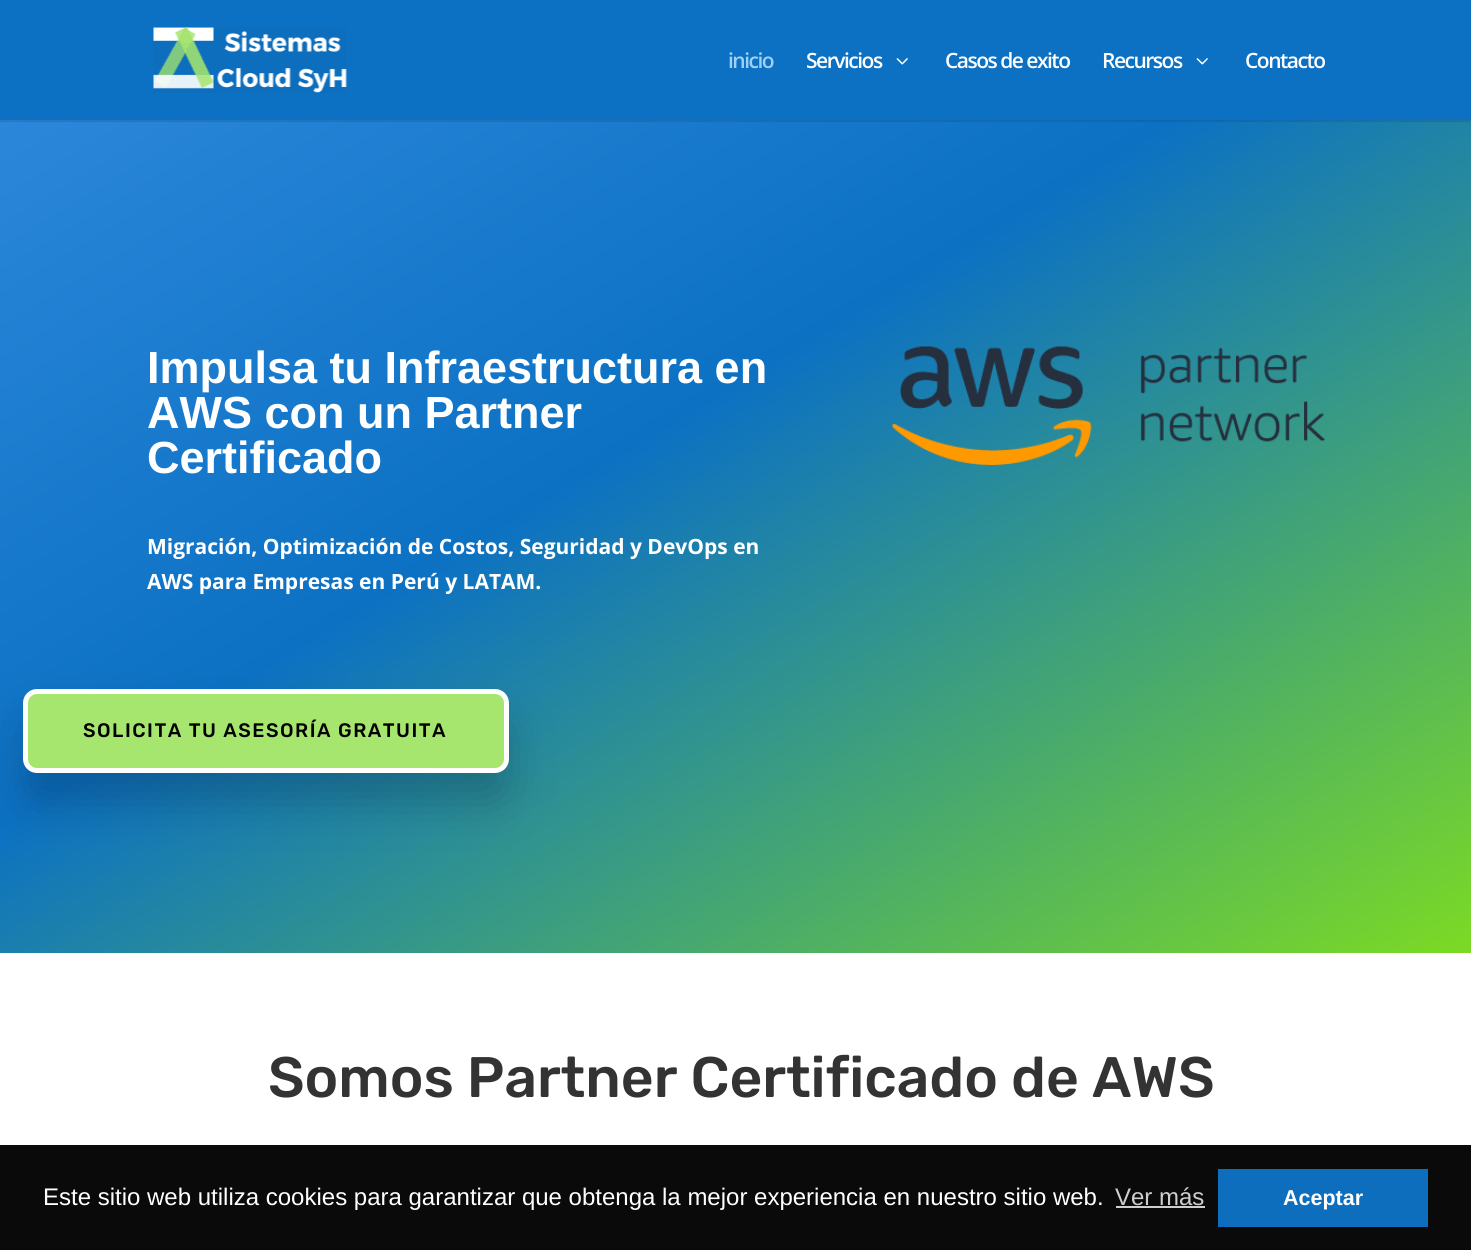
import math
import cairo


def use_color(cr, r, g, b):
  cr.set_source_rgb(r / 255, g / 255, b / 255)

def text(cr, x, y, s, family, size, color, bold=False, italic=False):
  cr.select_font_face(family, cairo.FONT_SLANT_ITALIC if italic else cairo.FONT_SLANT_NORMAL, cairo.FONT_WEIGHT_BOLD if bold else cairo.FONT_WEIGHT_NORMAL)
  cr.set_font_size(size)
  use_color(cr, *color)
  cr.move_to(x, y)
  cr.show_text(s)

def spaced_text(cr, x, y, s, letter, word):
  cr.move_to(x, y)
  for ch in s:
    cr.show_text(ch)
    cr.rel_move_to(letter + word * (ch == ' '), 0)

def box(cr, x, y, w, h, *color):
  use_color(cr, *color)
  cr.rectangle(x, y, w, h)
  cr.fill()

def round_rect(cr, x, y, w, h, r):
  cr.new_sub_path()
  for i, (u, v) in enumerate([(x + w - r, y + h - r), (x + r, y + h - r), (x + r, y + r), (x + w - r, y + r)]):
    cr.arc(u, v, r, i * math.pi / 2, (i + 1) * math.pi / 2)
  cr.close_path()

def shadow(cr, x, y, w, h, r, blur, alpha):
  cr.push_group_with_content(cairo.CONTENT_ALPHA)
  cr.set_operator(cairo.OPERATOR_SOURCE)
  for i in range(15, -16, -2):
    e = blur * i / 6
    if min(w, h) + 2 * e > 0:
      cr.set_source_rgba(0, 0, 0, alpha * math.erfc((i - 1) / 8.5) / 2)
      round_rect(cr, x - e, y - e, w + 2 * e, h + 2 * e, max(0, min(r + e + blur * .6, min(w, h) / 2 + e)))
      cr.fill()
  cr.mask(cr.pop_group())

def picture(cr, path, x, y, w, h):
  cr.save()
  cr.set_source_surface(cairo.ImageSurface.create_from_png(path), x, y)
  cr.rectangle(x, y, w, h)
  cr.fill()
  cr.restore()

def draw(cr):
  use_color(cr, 255, 255, 255)
  cr.paint()
  gradient = cairo.LinearGradient(357, -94, 1115, 1167)
  gradient.add_color_stop_rgba(0, 0.169, 0.529, 0.855, 1)
  gradient.add_color_stop_rgba(0.41, 0.047, 0.443, 0.765, 1)
  gradient.add_color_stop_rgba(1, 0.486, 0.855, 0.141, 1)
  cr.set_source(gradient)
  cr.rectangle(0, 120, 1471, 833)
  cr.fill()
  cr.set_source_rgba(0, 0, 0, 0.1)
  cr.new_path()
  cr.move_to(0, 120)
  cr.line_to(0, 122)
  cr.line_to(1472, 122)
  cr.line_to(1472, 2)
  cr.line_to(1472, 120)
  cr.close_path()
  cr.fill()
  box(cr, 0, 0, 1471, 120, 12, 113, 195)
  picture(cr, "img_01.png", 153, 27, 194, 66)
  picture(cr, "img_02.png", 896, 58, 12, 7)
  picture(cr, "img_02.png", 1196, 58, 12, 7)
  use_color(cr, 0, 0, 0)
  shadow(cr, 23, 719, 486, 84, 14, 22.5, 0.2)
  use_color(cr, 167, 230, 110)
  round_rect(cr, 25.5, 691.5, 481, 79, 11.5)
  cr.fill_preserve()
  use_color(cr, 255, 255, 255)
  cr.set_line_width(5)
  cr.stroke()
  picture(cr, "img_03.png", 892, 346, 433, 119)
  box(cr, 0, 1145, 1471, 105, 10, 10, 10)
  box(cr, 1116, 1206, 89, 2, 206, 206, 206)
  box(cr, 1218, 1169, 210, 58, 14, 110, 190)
  cr.select_font_face("Open Sans SemiBold")
  cr.set_font_size(21)
  use_color(cr, 159, 209, 242)
  spaced_text(cr, 728, 68, "inicio", -1.5, 0)
  use_color(cr, 255, 255, 255)
  spaced_text(cr, 806, 68, "Servicios", -1.5, 0)
  spaced_text(cr, 945, 68, "Casos de exito", -1.5, 0)
  spaced_text(cr, 1102, 68, "Recursos", -1.5, 0)
  spaced_text(cr, 1245, 68, "Contacto", -1.5, 0)
  text(cr, 147, 383, "Impulsa tu Infraestructura en", "Liberation Sans", 45, (255, 255, 255), bold=True)
  text(cr, 147, 428, "AWS con un Partner", "Liberation Sans", 45, (255, 255, 255), bold=True)
  text(cr, 147, 473, "Certificado", "Liberation Sans", 45, (255, 255, 255), bold=True)
  text(cr, 147, 554, "Migración, Optimización de Costos, Seguridad y DevOps en", "Open Sans", 21, (255, 255, 255), bold=True)
  text(cr, 147, 589, "AWS para Empresas en Perú y LATAM.", "Open Sans", 21, (255, 255, 255), bold=True)
  cr.select_font_face("Rubik Medium")
  cr.set_font_size(19.5)
  use_color(cr, 0, 0, 0)
  spaced_text(cr, 83, 737, "SOLICITA TU ASESORÍA GRATUITA", 1.5, 0)
  text(cr, 268, 1097, "Somos Partner Certificado de AWS", "Rubik Medium", 57, (51, 51, 51))
  text(cr, 43, 1205, "Este sitio web utiliza cookies para garantizar que obtenga la mejor experiencia en nuestro sitio web.", "Liberation Sans", 24, (255, 255, 255))
  text(cr, 1115, 1205, "Ver más", "Liberation Sans", 24, (206, 206, 206))
  text(cr, 1283, 1205, "Aceptar", "Liberation Sans", 21.5, (255, 255, 255), bold=True)


surface = cairo.ImageSurface(cairo.FORMAT_RGB24, 1471, 1250)
cr = cairo.Context(surface)
options = cairo.FontOptions()
options.set_hint_metrics(cairo.HINT_METRICS_OFF)
options.set_hint_style(cairo.HINT_STYLE_NONE)
cr.set_font_options(options)
cr.set_miter_limit(4)
draw(cr)
surface.write_to_png("out.png")
